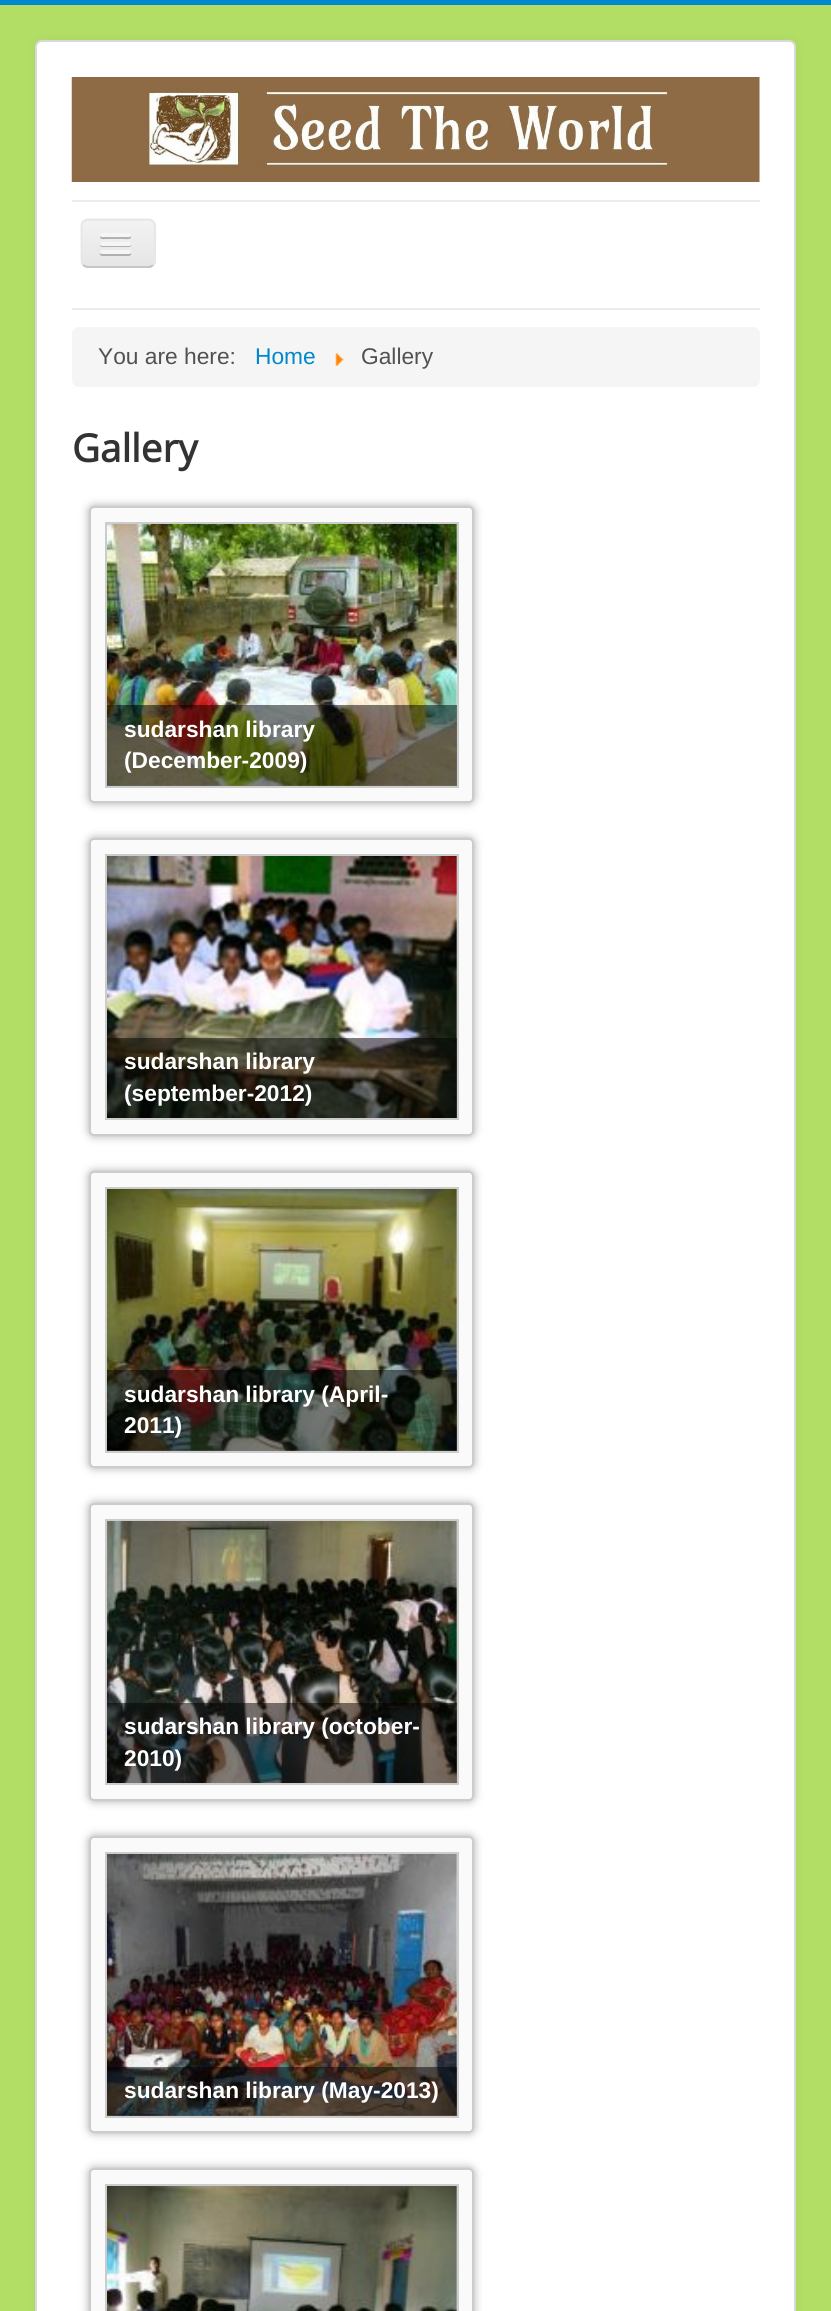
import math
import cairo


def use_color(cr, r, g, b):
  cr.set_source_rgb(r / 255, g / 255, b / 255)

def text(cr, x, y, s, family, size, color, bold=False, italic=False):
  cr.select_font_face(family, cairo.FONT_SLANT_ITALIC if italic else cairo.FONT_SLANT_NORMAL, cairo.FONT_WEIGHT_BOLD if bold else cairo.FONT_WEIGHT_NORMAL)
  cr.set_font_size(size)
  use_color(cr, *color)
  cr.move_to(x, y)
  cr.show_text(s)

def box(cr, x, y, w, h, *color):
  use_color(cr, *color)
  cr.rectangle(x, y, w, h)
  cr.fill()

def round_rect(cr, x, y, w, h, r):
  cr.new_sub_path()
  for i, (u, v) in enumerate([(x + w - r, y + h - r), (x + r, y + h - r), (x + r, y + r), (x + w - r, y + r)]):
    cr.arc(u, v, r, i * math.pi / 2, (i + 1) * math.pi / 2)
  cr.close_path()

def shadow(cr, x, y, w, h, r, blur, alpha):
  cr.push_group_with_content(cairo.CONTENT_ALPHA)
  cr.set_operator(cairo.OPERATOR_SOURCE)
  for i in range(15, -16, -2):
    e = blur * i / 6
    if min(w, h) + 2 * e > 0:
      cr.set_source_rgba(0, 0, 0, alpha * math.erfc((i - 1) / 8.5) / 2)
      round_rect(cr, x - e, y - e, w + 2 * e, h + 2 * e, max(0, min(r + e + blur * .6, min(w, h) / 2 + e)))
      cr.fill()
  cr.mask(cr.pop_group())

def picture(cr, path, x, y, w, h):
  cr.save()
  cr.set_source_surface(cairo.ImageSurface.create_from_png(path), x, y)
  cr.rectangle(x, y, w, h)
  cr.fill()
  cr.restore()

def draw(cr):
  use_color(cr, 178, 222, 102)
  cr.paint()
  box(cr, 0, 0, 831, 5, 0, 136, 204)
  use_color(cr, 0, 0, 0)
  shadow(cr, 35, 40, 761, 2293, 7, 5, 0.05)
  use_color(cr, 255, 255, 255)
  round_rect(cr, 35, 40, 761, 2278, 7)
  cr.fill()
  round_rect(cr, 36, 41, 759, 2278, 6)
  cr.set_source_rgba(0, 0, 0, 0.15)
  cr.stroke()
  picture(cr, "img_01.png", 71, 77, 689, 105)
  box(cr, 72, 200, 688, 2, 236, 236, 236)
  box(cr, 72, 308, 688, 2, 236, 236, 236)
  use_color(cr, 237, 237, 237)
  round_rect(cr, 81, 219, 75, 49, 7)
  cr.fill()
  cr.save()
  round_rect(cr, 81, 219, 75, 49, 7)
  cr.clip()
  gradient = cairo.LinearGradient(118, 221, 118, 266)
  gradient.add_color_stop_rgba(0, 0.949, 0.949, 0.949, 1)
  gradient.add_color_stop_rgba(1, 0.902, 0.902, 0.902, 1)
  cr.set_source(gradient)
  cr.rectangle(81, 221, 75, 45)
  cr.fill()
  cr.restore()
  cr.new_path()
  cr.move_to(153, 265)
  cr.curve_to(152, 266, 150.5, 267, 149, 267)
  cr.line_to(87.5, 267)
  cr.curve_to(86, 267, 84.5, 266, 83, 265)
  use_color(cr, 191, 191, 191)
  cr.set_line_width(1.8)
  cr.stroke()
  cr.new_path()
  cr.move_to(83, 265)
  cr.curve_to(82, 264, 81.5, 262.5, 81.5, 261)
  cr.line_to(81.5, 226)
  cr.curve_to(81.5, 224, 82, 222.5, 83, 221.5)
  cr.curve_to(84.5, 220.5, 86, 219.5, 87.5, 219.5)
  cr.line_to(149, 219.5)
  cr.curve_to(150.5, 219.5, 152, 220.5, 153, 221.5)
  cr.curve_to(154, 222.5, 155, 224, 155, 226)
  cr.line_to(155, 261)
  cr.curve_to(155, 262.5, 154, 264, 153, 265)
  use_color(cr, 230, 230, 230)
  cr.stroke()
  use_color(cr, 178, 178, 178)
  cr.new_path()
  cr.move_to(100.5, 236)
  cr.line_to(100, 237.5)
  cr.curve_to(100.5, 240, 105.5, 239, 106.5, 239)
  cr.line_to(124.5, 239)
  cr.curve_to(125.5, 239, 130.5, 240, 131, 237.5)
  cr.line_to(130.5, 236)
  cr.curve_to(129.5, 236.5, 101.5, 236.5, 100.5, 236)
  cr.close_path()
  cr.fill()
  use_color(cr, 245, 245, 245)
  round_rect(cr, 100, 233, 31, 4, 2)
  cr.fill()
  use_color(cr, 176, 176, 176)
  cr.new_path()
  cr.move_to(100, 244.5)
  cr.curve_to(99, 248, 105.5, 247, 106.5, 247)
  cr.line_to(124.5, 247)
  cr.curve_to(125.5, 247, 132, 248, 131, 244.5)
  cr.line_to(129.5, 245)
  cr.line_to(101.5, 245)
  cr.close_path()
  cr.fill()
  use_color(cr, 245, 245, 245)
  round_rect(cr, 100, 242, 31, 4, 2)
  cr.fill()
  use_color(cr, 175, 175, 175)
  cr.new_path()
  cr.move_to(100, 253)
  cr.curve_to(98.5, 257, 105.5, 256, 106.5, 256)
  cr.line_to(124.5, 256)
  cr.curve_to(125.5, 256, 132.5, 257, 131, 253)
  cr.line_to(129.5, 253.5)
  cr.line_to(101.5, 253.5)
  cr.close_path()
  cr.fill()
  use_color(cr, 245, 245, 245)
  round_rect(cr, 100, 250, 31, 4, 2)
  cr.fill()
  round_rect(cr, 72, 327, 688, 60, 7)
  cr.fill()
  picture(cr, "img_02.png", 335, 353, 9, 13)
  use_color(cr, 170, 170, 170)
  shadow(cr, 89, 506, 385, 297, 5, 4.5, 1)
  use_color(cr, 250, 250, 250)
  round_rect(cr, 90, 507, 383, 295, 4)
  cr.fill_preserve()
  use_color(cr, 204, 204, 204)
  cr.set_line_width(2)
  cr.stroke()
  box(cr, 107, 524, 350, 262, 255, 255, 255)
  picture(cr, "img_03.png", 107, 524, 350, 262)
  cr.rectangle(106, 523, 352, 264)
  use_color(cr, 204, 204, 204)
  cr.stroke()
  cr.set_source_rgba(0, 0, 0, 0.5)
  cr.rectangle(107, 705, 350, 81)
  cr.fill()
  use_color(cr, 170, 170, 170)
  shadow(cr, 89, 838, 385, 298, 5, 4.5, 1)
  use_color(cr, 250, 250, 250)
  round_rect(cr, 90, 839, 383, 296, 4)
  cr.fill_preserve()
  use_color(cr, 204, 204, 204)
  cr.stroke()
  picture(cr, "img_04.png", 107, 856, 350, 262)
  cr.rectangle(106, 855, 352, 264)
  cr.stroke()
  cr.set_source_rgba(0, 0, 0, 0.5)
  cr.rectangle(107, 1038, 350, 80)
  cr.fill()
  use_color(cr, 170, 170, 170)
  shadow(cr, 89, 1171, 385, 297, 5, 4.5, 1)
  use_color(cr, 250, 250, 250)
  round_rect(cr, 90, 1172, 383, 295, 4)
  cr.fill_preserve()
  use_color(cr, 204, 204, 204)
  cr.stroke()
  box(cr, 107, 1189, 350, 262, 255, 255, 255)
  picture(cr, "img_05.png", 107, 1189, 350, 262)
  cr.rectangle(106, 1188, 352, 264)
  use_color(cr, 204, 204, 204)
  cr.stroke()
  cr.set_source_rgba(0, 0, 0, 0.5)
  cr.rectangle(107, 1370, 350, 81)
  cr.fill()
  use_color(cr, 170, 170, 170)
  shadow(cr, 89, 1503, 385, 298, 5, 4.5, 1)
  use_color(cr, 250, 250, 250)
  round_rect(cr, 90, 1504, 383, 296, 4)
  cr.fill_preserve()
  use_color(cr, 204, 204, 204)
  cr.stroke()
  picture(cr, "img_06.png", 107, 1521, 350, 262)
  cr.rectangle(106, 1520, 352, 264)
  cr.stroke()
  cr.set_source_rgba(0, 0, 0, 0.5)
  cr.rectangle(107, 1703, 350, 80)
  cr.fill()
  use_color(cr, 170, 170, 170)
  shadow(cr, 89, 1836, 385, 297, 5, 4.5, 1)
  use_color(cr, 250, 250, 250)
  round_rect(cr, 90, 1837, 383, 295, 4)
  cr.fill_preserve()
  use_color(cr, 204, 204, 204)
  cr.stroke()
  box(cr, 107, 1854, 350, 262, 255, 255, 255)
  picture(cr, "img_07.png", 107, 1854, 350, 262)
  cr.rectangle(106, 1853, 352, 264)
  use_color(cr, 204, 204, 204)
  cr.stroke()
  cr.set_source_rgba(0, 0, 0, 0.5)
  cr.rectangle(107, 2067, 350, 49)
  cr.fill()
  use_color(cr, 170, 170, 170)
  shadow(cr, 89, 2168, 385, 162, 5, 4.5, 1)
  use_color(cr, 250, 250, 250)
  round_rect(cr, 90, 2169, 383, 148, 4)
  cr.fill_preserve()
  use_color(cr, 204, 204, 204)
  cr.stroke()
  picture(cr, "img_08.png", 107, 2186, 350, 125)
  cr.rectangle(106, 2185, 352, 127)
  cr.stroke()
  text(cr, 98, 364, "You are here:", "Liberation Sans", 22.75, (81, 81, 81))
  text(cr, 255, 364, "Home", "Liberation Sans", 22.75, (0, 136, 204))
  text(cr, 361, 364, "Gallery", "Liberation Sans", 22.75, (81, 81, 81))
  text(cr, 72, 462, "Gallery", "Open Sans", 38.5, (51, 51, 51), bold=True)
  text(cr, 124, 737, "sudarshan library", "Liberation Sans", 22.75, (255, 255, 255), bold=True)
  text(cr, 124, 768, "(December-2009)", "Liberation Sans", 22.75, (255, 255, 255), bold=True)
  text(cr, 124, 1069, "sudarshan library", "Liberation Sans", 22.75, (255, 255, 255), bold=True)
  text(cr, 124, 1101, "(september-2012)", "Liberation Sans", 22.75, (255, 255, 255), bold=True)
  text(cr, 124, 1402, "sudarshan library (April-", "Liberation Sans", 22.75, (255, 255, 255), bold=True)
  text(cr, 124, 1433, "2011)", "Liberation Sans", 22.75, (255, 255, 255), bold=True)
  text(cr, 124, 1734, "sudarshan library (october-", "Liberation Sans", 22.75, (255, 255, 255), bold=True)
  text(cr, 124, 1766, "2010)", "Liberation Sans", 22.75, (255, 255, 255), bold=True)
  text(cr, 124, 2098, "sudarshan library (May-2013)", "Liberation Sans", 22.75, (255, 255, 255), bold=True)


surface = cairo.ImageSurface(cairo.FORMAT_RGB24, 831, 2311)
cr = cairo.Context(surface)
options = cairo.FontOptions()
options.set_hint_metrics(cairo.HINT_METRICS_OFF)
options.set_hint_style(cairo.HINT_STYLE_NONE)
cr.set_font_options(options)
cr.set_miter_limit(4)
draw(cr)
surface.write_to_png("out.png")
